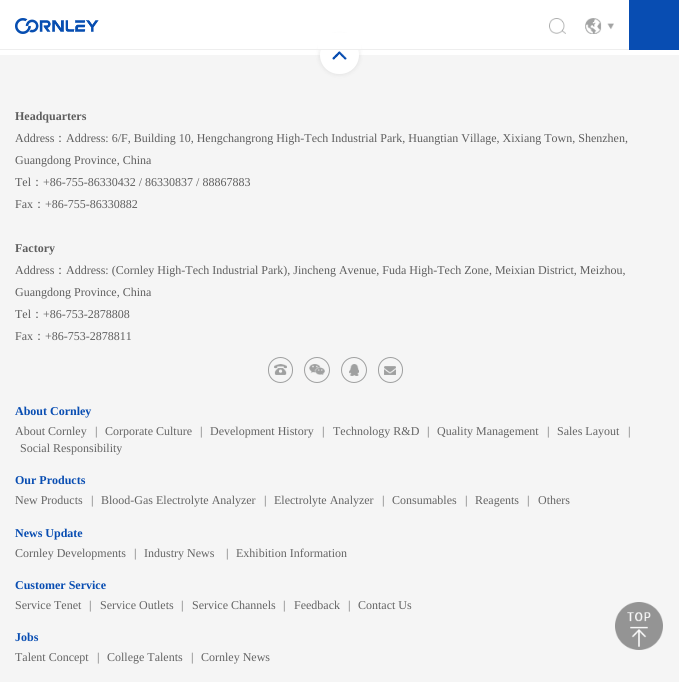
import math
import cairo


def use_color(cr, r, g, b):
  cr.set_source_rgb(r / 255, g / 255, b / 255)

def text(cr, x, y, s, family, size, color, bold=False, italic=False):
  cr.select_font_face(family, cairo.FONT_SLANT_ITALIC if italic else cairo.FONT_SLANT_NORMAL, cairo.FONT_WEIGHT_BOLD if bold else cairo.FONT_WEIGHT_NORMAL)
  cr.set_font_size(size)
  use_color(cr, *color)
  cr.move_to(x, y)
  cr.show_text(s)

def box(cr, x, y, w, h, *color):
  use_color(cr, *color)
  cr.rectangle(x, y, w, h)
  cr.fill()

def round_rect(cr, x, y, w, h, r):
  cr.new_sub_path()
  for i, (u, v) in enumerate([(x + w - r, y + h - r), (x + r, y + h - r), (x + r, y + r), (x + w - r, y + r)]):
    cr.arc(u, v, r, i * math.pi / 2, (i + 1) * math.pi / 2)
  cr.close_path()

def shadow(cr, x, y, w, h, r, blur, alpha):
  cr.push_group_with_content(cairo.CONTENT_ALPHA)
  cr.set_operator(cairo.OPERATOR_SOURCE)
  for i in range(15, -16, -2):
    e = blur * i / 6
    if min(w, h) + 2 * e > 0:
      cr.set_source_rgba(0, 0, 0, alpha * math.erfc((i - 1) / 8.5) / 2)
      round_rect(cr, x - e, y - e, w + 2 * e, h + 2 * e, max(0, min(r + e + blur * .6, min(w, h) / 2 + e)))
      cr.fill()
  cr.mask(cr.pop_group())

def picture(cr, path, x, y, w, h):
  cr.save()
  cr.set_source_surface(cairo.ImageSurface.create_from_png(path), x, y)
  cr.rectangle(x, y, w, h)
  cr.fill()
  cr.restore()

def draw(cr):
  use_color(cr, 255, 255, 255)
  cr.paint()
  box(cr, 0, 55, 679, 627, 245, 245, 245)
  use_color(cr, 0, 0, 0)
  shadow(cr, 320, 36, 39, 38, 19, 2.5, 0.1)
  use_color(cr, 255, 255, 255)
  round_rect(cr, 320, 36, 39, 38, 19)
  cr.fill()
  box(cr, 318, 33, 43, 16, 255, 255, 255)
  box(cr, 0, 49, 629, 1, 238, 238, 238)
  picture(cr, "img_01.png", 15, 18, 84, 16)
  picture(cr, "img_02.png", 549, 18, 17, 16)
  picture(cr, "img_03.png", 585, 18, 29, 16)
  box(cr, 629, 0, 50, 50, 8, 77, 178)
  picture(cr, "img_04.png", 332, 51, 15, 9)
  picture(cr, "img_05.png", 274, 364, 13, 11)
  round_rect(cr, 268.5, 357.5, 24, 25, 12)
  use_color(cr, 159, 160, 160)
  cr.set_line_width(1)
  cr.stroke()
  picture(cr, "img_06.png", 309, 364, 16, 11)
  cr.arc(317, 370, 12.5, 0, 2 * math.pi)
  cr.stroke()
  picture(cr, "img_07.png", 349, 364, 10, 12)
  cr.arc(354, 370, 12.5, 0, 2 * math.pi)
  cr.stroke()
  picture(cr, "img_08.png", 384, 366, 12, 9)
  round_rect(cr, 378.5, 357.5, 24, 25, 12)
  cr.stroke()
  picture(cr, "img_09.png", 615, 602, 48, 48)
  text(cr, 15, 120, "Headquarters", "Liberation Serif", 12, (94, 94, 94), bold=True)
  text(cr, 15, 142, "Address", "Liberation Serif", 12, (94, 94, 94))
  text(cr, 54, 142, "：", "WenQuanYi Zen Hei Medium", 12, (94, 94, 94))
  text(cr, 66, 142, "Address: 6/F, Building 10, Hengchangrong High-Tech Industrial Park, Huangtian Village, Xixiang Town, Shenzhen,", "Liberation Serif", 12, (94, 94, 94))
  text(cr, 15, 164, "Guangdong Province, China", "Liberation Serif", 12, (94, 94, 94))
  text(cr, 15, 186, "Tel", "Liberation Serif", 12, (94, 94, 94))
  text(cr, 31, 186, "：", "WenQuanYi Zen Hei Medium", 12, (94, 94, 94))
  text(cr, 43, 186, "+86-755-86330432 / 86330837 / 88867883", "Liberation Serif", 12, (94, 94, 94))
  text(cr, 15, 208, "Fax", "Liberation Serif", 12, (94, 94, 94))
  text(cr, 33, 208, "：", "WenQuanYi Zen Hei Medium", 12, (94, 94, 94))
  text(cr, 45, 208, "+86-755-86330882", "Liberation Serif", 12, (94, 94, 94))
  text(cr, 15, 252, "Factory", "Liberation Serif", 12, (94, 94, 94), bold=True)
  text(cr, 15, 274, "Address", "Liberation Serif", 12, (94, 94, 94))
  text(cr, 54, 274, "：", "WenQuanYi Zen Hei Medium", 12, (94, 94, 94))
  text(cr, 66, 274, "Address: (Cornley High-Tech Industrial Park), Jincheng Avenue, Fuda High-Tech Zone, Meixian District, Meizhou,", "Liberation Serif", 12, (94, 94, 94))
  text(cr, 15, 296, "Guangdong Province, China", "Liberation Serif", 12, (94, 94, 94))
  text(cr, 15, 318, "Tel", "Liberation Serif", 12, (94, 94, 94))
  text(cr, 31, 318, "：", "WenQuanYi Zen Hei Medium", 12, (94, 94, 94))
  text(cr, 43, 318, "+86-753-2878808", "Liberation Serif", 12, (94, 94, 94))
  text(cr, 15, 340, "Fax", "Liberation Serif", 12, (94, 94, 94))
  text(cr, 33, 340, "：", "WenQuanYi Zen Hei Medium", 12, (94, 94, 94))
  text(cr, 45, 340, "+86-753-2878811", "Liberation Serif", 12, (94, 94, 94))
  text(cr, 15, 415, "About Cornley", "Liberation Serif", 12, (8, 77, 178), bold=True)
  text(cr, 15, 435, "About Cornley", "Liberation Serif", 12, (100, 100, 100))
  text(cr, 95, 435, "|", "Liberation Serif", 12, (100, 100, 100))
  text(cr, 105, 435, "Corporate Culture", "Liberation Serif", 12, (100, 100, 100))
  text(cr, 200, 435, "|", "Liberation Serif", 12, (100, 100, 100))
  text(cr, 210, 435, "Development History", "Liberation Serif", 12, (100, 100, 100))
  text(cr, 322, 435, "|", "Liberation Serif", 12, (100, 100, 100))
  text(cr, 333, 435, "Technology R&D", "Liberation Serif", 12, (100, 100, 100))
  text(cr, 427, 435, "|", "Liberation Serif", 12, (100, 100, 100))
  text(cr, 437, 435, "Quality Management", "Liberation Serif", 12, (100, 100, 100))
  text(cr, 547, 435, "|", "Liberation Serif", 12, (100, 100, 100))
  text(cr, 557, 435, "Sales Layout", "Liberation Serif", 12, (100, 100, 100))
  text(cr, 628, 435, "|", "Liberation Serif", 12, (100, 100, 100))
  text(cr, 20, 452, "Social Responsibility", "Liberation Serif", 12, (100, 100, 100))
  text(cr, 15, 484, "Our Products", "Liberation Serif", 12, (8, 77, 178), bold=True)
  text(cr, 15, 504, "New Products", "Liberation Serif", 12, (100, 100, 100))
  text(cr, 91, 504, "|", "Liberation Serif", 12, (100, 100, 100))
  text(cr, 101, 504, "Blood-Gas Electrolyte Analyzer", "Liberation Serif", 12, (100, 100, 100))
  text(cr, 264, 504, "|", "Liberation Serif", 12, (100, 100, 100))
  text(cr, 274, 504, "Electrolyte Analyzer", "Liberation Serif", 12, (100, 100, 100))
  text(cr, 382, 504, "|", "Liberation Serif", 12, (100, 100, 100))
  text(cr, 392, 504, "Consumables", "Liberation Serif", 12, (100, 100, 100))
  text(cr, 465, 504, "|", "Liberation Serif", 12, (100, 100, 100))
  text(cr, 475, 504, "Reagents", "Liberation Serif", 12, (100, 100, 100))
  text(cr, 527, 504, "|", "Liberation Serif", 12, (100, 100, 100))
  text(cr, 538, 504, "Others", "Liberation Serif", 12, (100, 100, 100))
  text(cr, 15, 537, "News Update", "Liberation Serif", 12, (8, 77, 178), bold=True)
  text(cr, 15, 557, "Cornley Developments", "Liberation Serif", 12, (100, 100, 100))
  text(cr, 134, 557, "|", "Liberation Serif", 12, (100, 100, 100))
  text(cr, 144, 557, "Industry News", "Liberation Serif", 12, (100, 100, 100))
  text(cr, 226, 557, "|", "Liberation Serif", 12, (100, 100, 100))
  text(cr, 236, 557, "Exhibition Information", "Liberation Serif", 12, (100, 100, 100))
  text(cr, 15, 589, "Customer Service", "Liberation Serif", 12, (8, 77, 178), bold=True)
  text(cr, 15, 609, "Service Tenet", "Liberation Serif", 12, (100, 100, 100))
  text(cr, 89, 609, "|", "Liberation Serif", 12, (100, 100, 100))
  text(cr, 100, 609, "Service Outlets", "Liberation Serif", 12, (100, 100, 100))
  text(cr, 181, 609, "|", "Liberation Serif", 12, (100, 100, 100))
  text(cr, 192, 609, "Service Channels", "Liberation Serif", 12, (100, 100, 100))
  text(cr, 283, 609, "|", "Liberation Serif", 12, (100, 100, 100))
  text(cr, 294, 609, "Feedback", "Liberation Serif", 12, (100, 100, 100))
  text(cr, 348, 609, "|", "Liberation Serif", 12, (100, 100, 100))
  text(cr, 358, 609, "Contact Us", "Liberation Serif", 12, (100, 100, 100))
  text(cr, 15, 641, "Jobs", "Liberation Serif", 12, (8, 77, 178), bold=True)
  text(cr, 15, 661, "Talent Concept", "Liberation Serif", 12, (100, 100, 100))
  text(cr, 97, 661, "|", "Liberation Serif", 12, (100, 100, 100))
  text(cr, 107, 661, "College Talents", "Liberation Serif", 12, (100, 100, 100))
  text(cr, 191, 661, "|", "Liberation Serif", 12, (100, 100, 100))
  text(cr, 201, 661, "Cornley News", "Liberation Serif", 12, (100, 100, 100))


surface = cairo.ImageSurface(cairo.FORMAT_RGB24, 679, 682)
cr = cairo.Context(surface)
options = cairo.FontOptions()
options.set_hint_metrics(cairo.HINT_METRICS_OFF)
options.set_hint_style(cairo.HINT_STYLE_NONE)
cr.set_font_options(options)
cr.set_miter_limit(4)
draw(cr)
surface.write_to_png("out.png")
